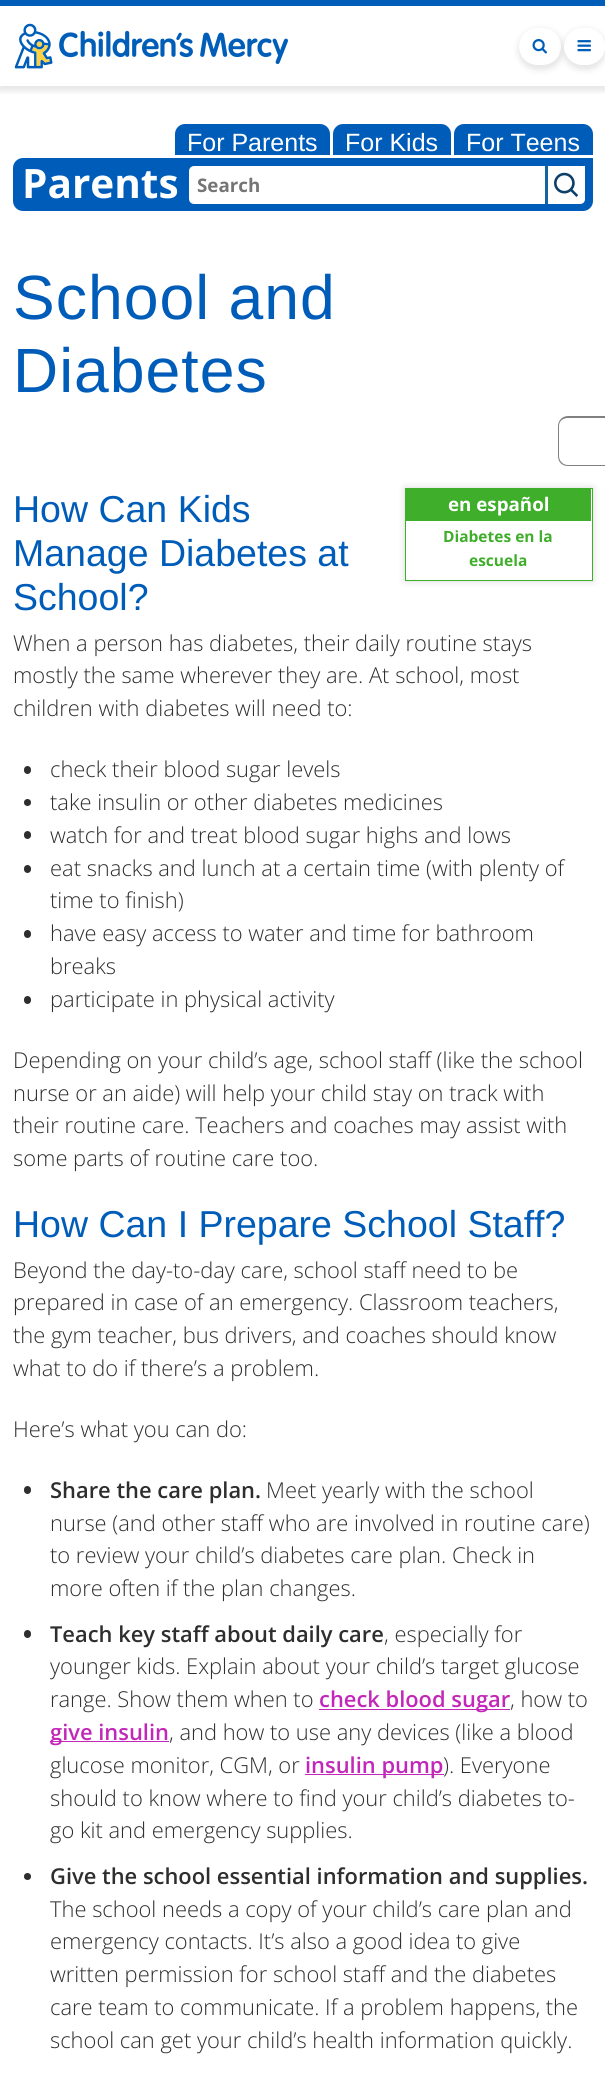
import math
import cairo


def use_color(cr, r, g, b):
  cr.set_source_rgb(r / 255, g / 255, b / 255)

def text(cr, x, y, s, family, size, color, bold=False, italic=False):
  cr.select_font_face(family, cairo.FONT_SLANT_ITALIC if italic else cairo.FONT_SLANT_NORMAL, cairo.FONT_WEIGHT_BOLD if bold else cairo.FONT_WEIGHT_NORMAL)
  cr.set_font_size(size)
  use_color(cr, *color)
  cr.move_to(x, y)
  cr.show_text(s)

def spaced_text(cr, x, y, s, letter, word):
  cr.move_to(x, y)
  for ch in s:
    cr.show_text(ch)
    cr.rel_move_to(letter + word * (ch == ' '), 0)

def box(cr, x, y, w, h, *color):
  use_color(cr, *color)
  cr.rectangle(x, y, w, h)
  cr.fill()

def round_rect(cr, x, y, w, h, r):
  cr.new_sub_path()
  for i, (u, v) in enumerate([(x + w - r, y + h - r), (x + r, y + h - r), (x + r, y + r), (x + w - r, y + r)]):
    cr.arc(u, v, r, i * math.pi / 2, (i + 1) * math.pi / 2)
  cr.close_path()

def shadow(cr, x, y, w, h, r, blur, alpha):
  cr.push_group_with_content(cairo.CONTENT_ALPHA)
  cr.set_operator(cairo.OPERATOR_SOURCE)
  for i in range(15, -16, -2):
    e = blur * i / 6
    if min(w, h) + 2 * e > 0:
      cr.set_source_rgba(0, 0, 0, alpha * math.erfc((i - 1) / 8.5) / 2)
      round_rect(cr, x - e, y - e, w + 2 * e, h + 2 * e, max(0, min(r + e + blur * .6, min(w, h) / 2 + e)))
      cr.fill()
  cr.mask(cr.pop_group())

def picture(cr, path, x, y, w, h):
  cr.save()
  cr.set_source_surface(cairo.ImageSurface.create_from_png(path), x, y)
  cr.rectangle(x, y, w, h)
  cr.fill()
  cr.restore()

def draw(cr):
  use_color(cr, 255, 255, 255)
  cr.paint()
  cr.save()
  cr.rectangle(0, 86, 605, 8)
  cr.clip()
  use_color(cr, 0, 0, 0)
  shadow(cr, -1, 1, 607, 90, 0, 3, 0.1)
  cr.restore()
  box(cr, 0, 0, 605, 6, 0, 94, 184)
  picture(cr, "img_01.png", 14, 23, 274, 46)
  use_color(cr, 0, 0, 0)
  shadow(cr, 518, 29, 45, 41, 20.5, 3, 0.1)
  use_color(cr, 255, 255, 255)
  round_rect(cr, 519, 28, 42, 37, 18.5)
  cr.fill()
  picture(cr, "img_02.png", 532, 39, 15, 15)
  use_color(cr, 0, 0, 0)
  shadow(cr, 563, 29, 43, 41, 20.5, 3, 0.1)
  use_color(cr, 255, 255, 255)
  round_rect(cr, 564, 28, 41, 37, 18.5)
  cr.fill()
  picture(cr, "img_03.png", 577, 40, 14, 12)
  use_color(cr, 0, 92, 185)
  cr.new_path()
  cr.move_to(185, 124)
  cr.line_to(320, 124)
  cr.curve_to(325.5, 124, 330, 128.5, 330, 134)
  cr.line_to(330, 155)
  cr.line_to(175, 155)
  cr.line_to(175, 134)
  cr.curve_to(175, 128.5, 179.5, 124, 185, 124)
  cr.close_path()
  cr.fill()
  cr.new_path()
  cr.move_to(343, 124)
  cr.line_to(441, 124)
  cr.curve_to(446.5, 124, 451, 128.5, 451, 134)
  cr.line_to(451, 155)
  cr.line_to(333, 155)
  cr.line_to(333, 134)
  cr.curve_to(333, 128.5, 337.5, 124, 343, 124)
  cr.close_path()
  cr.fill()
  cr.new_path()
  cr.move_to(464, 124)
  cr.line_to(583, 124)
  cr.curve_to(588.5, 124, 593, 128.5, 593, 134)
  cr.line_to(593, 155)
  cr.line_to(454, 155)
  cr.line_to(454, 134)
  cr.curve_to(454, 128.5, 458.5, 124, 464, 124)
  cr.close_path()
  cr.fill()
  cr.new_path()
  cr.move_to(23, 158)
  cr.line_to(593, 158)
  cr.line_to(593, 201)
  cr.curve_to(593, 206.5, 588.5, 211, 583, 211)
  cr.line_to(23, 211)
  cr.curve_to(17.5, 211, 13, 206.5, 13, 201)
  cr.line_to(13, 168)
  cr.curve_to(13, 162.5, 17.5, 158, 23, 158)
  cr.close_path()
  cr.fill()
  use_color(cr, 255, 255, 255)
  cr.new_path()
  cr.move_to(194, 167.5)
  cr.line_to(543.5, 167.5)
  cr.line_to(543.5, 202.5)
  cr.line_to(194, 202.5)
  cr.curve_to(192, 202.5, 190.5, 201, 190.5, 199)
  cr.line_to(190.5, 171)
  cr.curve_to(190.5, 169, 192, 167.5, 194, 167.5)
  cr.close_path()
  cr.fill_preserve()
  cr.set_line_width(3)
  cr.stroke()
  box(cr, 545, 166, 3, 38, 21, 100, 162)
  use_color(cr, 255, 255, 255)
  cr.new_path()
  cr.move_to(548, 166)
  cr.line_to(585, 166)
  cr.line_to(585, 199)
  cr.curve_to(585, 202, 583, 204, 580, 204)
  cr.line_to(548, 204)
  cr.close_path()
  cr.fill()
  picture(cr, "img_04.png", 554, 172, 25, 25)
  use_color(cr, 128, 128, 128)
  cr.set_fill_rule(cairo.FILL_RULE_EVEN_ODD)
  cr.new_path()
  cr.move_to(568, 416)
  cr.line_to(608, 416)
  cr.line_to(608, 466)
  cr.line_to(568, 466)
  cr.curve_to(562, 466, 558, 462, 558, 456)
  cr.line_to(558, 426)
  cr.curve_to(558, 421, 562, 416, 568, 416)
  cr.close_path()
  cr.move_to(568, 418)
  cr.line_to(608, 418)
  cr.line_to(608, 465)
  cr.line_to(568, 465)
  cr.curve_to(563, 465, 559, 461, 559, 456)
  cr.line_to(559, 426)
  cr.curve_to(559, 421, 563, 418, 568, 418)
  cr.close_path()
  cr.fill()
  use_color(cr, 46, 46, 47)
  round_rect(cr, 24, 766, 7, 8, 3.5)
  cr.fill()
  cr.arc(27.5, 802.5, 3.5, 0, 2 * math.pi)
  cr.fill()
  round_rect(cr, 24, 831, 7, 8, 3.5)
  cr.fill()
  round_rect(cr, 24, 865, 7, 8, 3.5)
  cr.fill()
  round_rect(cr, 24, 930, 7, 8, 3.5)
  cr.fill()
  round_rect(cr, 24, 996, 7, 8, 3.5)
  cr.fill()
  round_rect(cr, 24, 1486, 7, 8, 3.5)
  cr.fill()
  round_rect(cr, 24, 1630, 7, 8, 3.5)
  cr.fill()
  box(cr, 319, 1709, 191, 1, 194, 39, 185)
  box(cr, 50, 1741, 119, 1, 194, 39, 185)
  box(cr, 305, 1774, 139, 1, 194, 39, 185)
  use_color(cr, 46, 46, 47)
  cr.arc(27.5, 1876.5, 3.5, 0, 2 * math.pi)
  cr.fill()
  cr.save()
  cr.new_path()
  cr.move_to(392, 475)
  cr.line_to(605, 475)
  cr.line_to(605, 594)
  cr.line_to(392, 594)
  cr.close_path()
  cr.move_to(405, 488)
  cr.line_to(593, 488)
  cr.line_to(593, 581)
  cr.line_to(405, 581)
  cr.close_path()
  cr.clip()
  use_color(cr, 0, 0, 0)
  shadow(cr, 405, 488, 188, 93, 0, 4, 0.15)
  cr.restore()
  cr.rectangle(405.5, 488.5, 187, 92)
  use_color(cr, 63, 174, 42)
  cr.set_line_width(1)
  cr.stroke()
  box(cr, 406, 489, 185, 32, 63, 174, 42)
  text(cr, 187, 151, "For Parents", "Liberation Sans", 25, (255, 255, 255))
  text(cr, 345, 151, "For Kids", "Liberation Sans", 25, (255, 255, 255))
  text(cr, 466, 151, "For Teens", "Liberation Sans", 25, (255, 255, 255))
  text(cr, 22, 198, "Parents", "Open Sans", 40.5, (255, 255, 255), bold=True)
  text(cr, 197, 192, "Search", "Open Sans", 18.75, (117, 117, 117), bold=True)
  cr.select_font_face("Liberation Sans")
  cr.set_font_size(62.5)
  use_color(cr, 0, 92, 185)
  spaced_text(cr, 13, 319, "School and", 1, 0)
  spaced_text(cr, 13, 392, "Diabetes", 1, 0)
  text(cr, 13, 522, "How Can Kids", "Liberation Sans", 37.5, (0, 92, 185))
  text(cr, 13, 566, "Manage Diabetes at", "Liberation Sans", 37.5, (0, 92, 185))
  text(cr, 13, 610, "School?", "Liberation Sans", 37.5, (0, 92, 185))
  text(cr, 13, 651, "When a person has diabetes, their daily routine stays", "Open Sans Light", 21.9, (46, 46, 47))
  text(cr, 13, 683, "mostly the same wherever they are. At school, most", "Open Sans Light", 21.9, (46, 46, 47))
  text(cr, 13, 716, "children with diabetes will need to:", "Open Sans Light", 21.9, (46, 46, 47))
  text(cr, 50, 777, "check their blood sugar levels", "Open Sans Light", 21.9, (46, 46, 47))
  text(cr, 50, 810, "take insulin or other diabetes medicines", "Open Sans Light", 21.9, (46, 46, 47))
  text(cr, 50, 843, "watch for and treat blood sugar highs and lows", "Open Sans Light", 21.9, (46, 46, 47))
  text(cr, 50, 876, "eat snacks and lunch at a certain time (with plenty of", "Open Sans Light", 21.9, (46, 46, 47))
  text(cr, 50, 908, "time to finish)", "Open Sans Light", 21.9, (46, 46, 47))
  text(cr, 50, 941, "have easy access to water and time for bathroom", "Open Sans Light", 21.9, (46, 46, 47))
  text(cr, 50, 974, "breaks", "Open Sans Light", 21.9, (46, 46, 47))
  text(cr, 50, 1007, "participate in physical activity", "Open Sans Light", 21.9, (46, 46, 47))
  text(cr, 13, 1068, "Depending on your child’s age, school staff (like the school", "Open Sans Light", 21.9, (46, 46, 47))
  text(cr, 13, 1101, "nurse or an aide) will help your child stay on track with", "Open Sans Light", 21.9, (46, 46, 47))
  text(cr, 13, 1133, "their routine care. Teachers and coaches may assist with", "Open Sans Light", 21.9, (46, 46, 47))
  text(cr, 13, 1166, "some parts of routine care too.", "Open Sans Light", 21.9, (46, 46, 47))
  text(cr, 13, 1237, "How Can I Prepare School Staff?", "Liberation Sans", 37.5, (0, 92, 185))
  text(cr, 13, 1278, "Beyond the day-to-day care, school staff need to be", "Open Sans Light", 21.9, (46, 46, 47))
  text(cr, 13, 1310, "prepared in case of an emergency. Classroom teachers,", "Open Sans Light", 21.9, (46, 46, 47))
  text(cr, 13, 1343, "the gym teacher, bus drivers, and coaches should know", "Open Sans Light", 21.9, (46, 46, 47))
  text(cr, 13, 1376, "what to do if there’s a problem.", "Open Sans Light", 21.9, (46, 46, 47))
  text(cr, 13, 1437, "Here’s what you can do:", "Open Sans Light", 21.9, (46, 46, 47))
  text(cr, 50, 1498, "Share the care plan.", "Open Sans SemiBold", 21.9, (46, 46, 47))
  text(cr, 266, 1498, "Meet yearly with the school", "Open Sans Light", 21.9, (46, 46, 47))
  text(cr, 50, 1531, "nurse (and other staff who are involved in routine care)", "Open Sans Light", 21.9, (46, 46, 47))
  text(cr, 50, 1563, "to review your child’s diabetes care plan. Check in", "Open Sans Light", 21.9, (46, 46, 47))
  text(cr, 50, 1596, "more often if the plan changes.", "Open Sans Light", 21.9, (46, 46, 47))
  text(cr, 50, 1642, "Teach key staff about daily care", "Open Sans SemiBold", 21.9, (46, 46, 47))
  text(cr, 384, 1642, ", especially for", "Open Sans Light", 21.9, (46, 46, 47))
  text(cr, 50, 1674, "younger kids. Explain about your child’s target glucose", "Open Sans Light", 21.9, (46, 46, 47))
  text(cr, 50, 1707, "range. Show them when to", "Open Sans Light", 21.9, (46, 46, 47))
  text(cr, 319, 1707, "check blood sugar", "Open Sans SemiBold", 21.9, (194, 39, 185))
  text(cr, 510, 1707, ", how to", "Open Sans Light", 21.9, (46, 46, 47))
  text(cr, 50, 1740, "give insulin", "Open Sans SemiBold", 21.9, (194, 39, 185))
  text(cr, 169, 1740, ", and how to use any devices (like a blood", "Open Sans Light", 21.9, (46, 46, 47))
  text(cr, 50, 1773, "glucose monitor, CGM, or", "Open Sans Light", 21.9, (46, 46, 47))
  text(cr, 305, 1773, "insulin pump", "Open Sans SemiBold", 21.9, (194, 39, 185))
  text(cr, 443, 1773, "). Everyone", "Open Sans Light", 21.9, (46, 46, 47))
  text(cr, 50, 1806, "should to know where to find your child’s diabetes to-", "Open Sans Light", 21.9, (46, 46, 47))
  text(cr, 50, 1838, "go kit and emergency supplies.", "Open Sans Light", 21.9, (46, 46, 47))
  text(cr, 50, 1884, "Give the school essential information and supplies.", "Open Sans SemiBold", 21.9, (46, 46, 47))
  text(cr, 50, 1917, "The school needs a copy of your child’s care plan and", "Open Sans Light", 21.9, (46, 46, 47))
  text(cr, 50, 1949, "emergency contacts. It’s also a good idea to give", "Open Sans Light", 21.9, (46, 46, 47))
  text(cr, 50, 1982, "written permission for school staff and the diabetes", "Open Sans Light", 21.9, (46, 46, 47))
  text(cr, 50, 2015, "care team to communicate. If a problem happens, the", "Open Sans Light", 21.9, (46, 46, 47))
  text(cr, 50, 2048, "school can get your child’s health information quickly.", "Open Sans Light", 21.9, (46, 46, 47))
  text(cr, 448, 511, "en español", "Open Sans", 18.75, (255, 255, 255), bold=True)
  text(cr, 443, 542, "Diabetes en la", "Open Sans", 15.5, (63, 174, 42), bold=True)
  text(cr, 469, 566, "escuela", "Open Sans", 15.5, (63, 174, 42), bold=True)


surface = cairo.ImageSurface(cairo.FORMAT_RGB24, 605, 2074)
cr = cairo.Context(surface)
options = cairo.FontOptions()
options.set_hint_metrics(cairo.HINT_METRICS_OFF)
options.set_hint_style(cairo.HINT_STYLE_NONE)
cr.set_font_options(options)
cr.set_miter_limit(4)
draw(cr)
surface.write_to_png("out.png")
